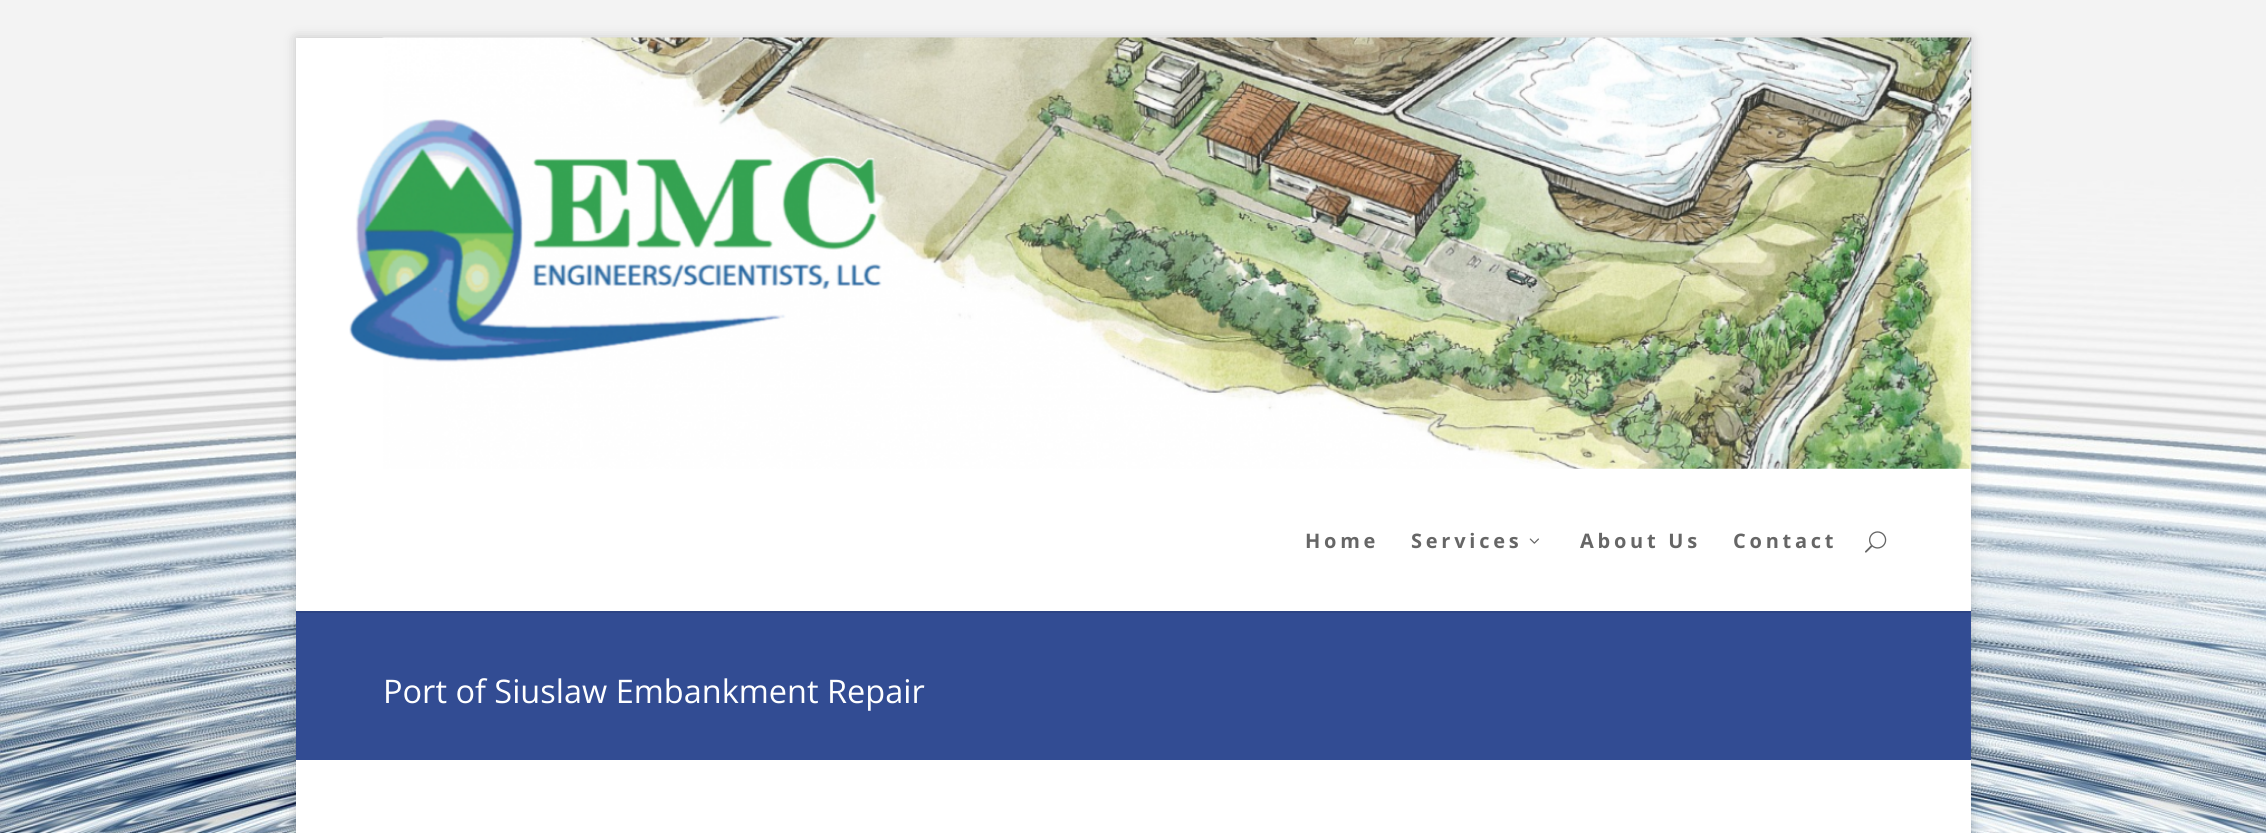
import math
import cairo


def use_color(cr, r, g, b):
  cr.set_source_rgb(r / 255, g / 255, b / 255)

def text(cr, x, y, s, family, size, color, bold=False, italic=False):
  cr.select_font_face(family, cairo.FONT_SLANT_ITALIC if italic else cairo.FONT_SLANT_NORMAL, cairo.FONT_WEIGHT_BOLD if bold else cairo.FONT_WEIGHT_NORMAL)
  cr.set_font_size(size)
  use_color(cr, *color)
  cr.move_to(x, y)
  cr.show_text(s)

def spaced_text(cr, x, y, s, letter, word):
  cr.move_to(x, y)
  for ch in s:
    cr.show_text(ch)
    cr.rel_move_to(letter + word * (ch == ' '), 0)

def box(cr, x, y, w, h, *color):
  use_color(cr, *color)
  cr.rectangle(x, y, w, h)
  cr.fill()

def round_rect(cr, x, y, w, h, r):
  cr.new_sub_path()
  for i, (u, v) in enumerate([(x + w - r, y + h - r), (x + r, y + h - r), (x + r, y + r), (x + w - r, y + r)]):
    cr.arc(u, v, r, i * math.pi / 2, (i + 1) * math.pi / 2)
  cr.close_path()

def shadow(cr, x, y, w, h, r, blur, alpha):
  cr.push_group_with_content(cairo.CONTENT_ALPHA)
  cr.set_operator(cairo.OPERATOR_SOURCE)
  for i in range(15, -16, -2):
    e = blur * i / 6
    if min(w, h) + 2 * e > 0:
      cr.set_source_rgba(0, 0, 0, alpha * math.erfc((i - 1) / 8.5) / 2)
      round_rect(cr, x - e, y - e, w + 2 * e, h + 2 * e, max(0, min(r + e + blur * .6, min(w, h) / 2 + e)))
      cr.fill()
  cr.mask(cr.pop_group())

def picture(cr, path, x, y, w, h):
  cr.save()
  cr.set_source_surface(cairo.ImageSurface.create_from_png(path), x, y)
  cr.rectangle(x, y, w, h)
  cr.fill()
  cr.restore()

def draw(cr):
  use_color(cr, 255, 255, 255)
  cr.paint()
  picture(cr, "img_01.png", 0, 0, 2266, 833)
  use_color(cr, 0, 0, 0)
  shadow(cr, 296, 38, 1675, 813, 0, 6, 0.2)
  use_color(cr, 45, 68, 132)
  cr.new_path()
  cr.move_to(296, 39)
  cr.line_to(296, 613)
  cr.line_to(1971, 613)
  cr.line_to(1971, 611)
  cr.line_to(296, 611)
  cr.close_path()
  cr.fill()
  box(cr, 296, 38, 1675, 573, 255, 255, 255)
  picture(cr, "img_02.png", 349, 37, 1623, 432)
  picture(cr, "img_03.png", 1529, 538, 10, 6)
  picture(cr, "img_04.png", 1865, 531, 22, 22)
  box(cr, 296, 760, 1675, 73, 255, 255, 255)
  box(cr, 296, 613, 1675, 147, 50, 76, 147)
  cr.select_font_face("Open Sans", cairo.FONT_SLANT_NORMAL, cairo.FONT_WEIGHT_BOLD)
  cr.set_font_size(20)
  use_color(cr, 102, 102, 102)
  spaced_text(cr, 1305, 548, "Home", 3.75, 0)
  spaced_text(cr, 1411, 548, "Services", 3.75, 0)
  spaced_text(cr, 1580, 548, "About Us", 3.75, 0)
  spaced_text(cr, 1733, 548, "Contact", 3.75, 0)
  text(cr, 383, 703, "Port of Siuslaw Embankment Repair", "Open Sans", 32.5, (255, 255, 255))


surface = cairo.ImageSurface(cairo.FORMAT_RGB24, 2266, 833)
cr = cairo.Context(surface)
options = cairo.FontOptions()
options.set_hint_metrics(cairo.HINT_METRICS_OFF)
options.set_hint_style(cairo.HINT_STYLE_NONE)
cr.set_font_options(options)
cr.set_miter_limit(4)
draw(cr)
surface.write_to_png("out.png")
